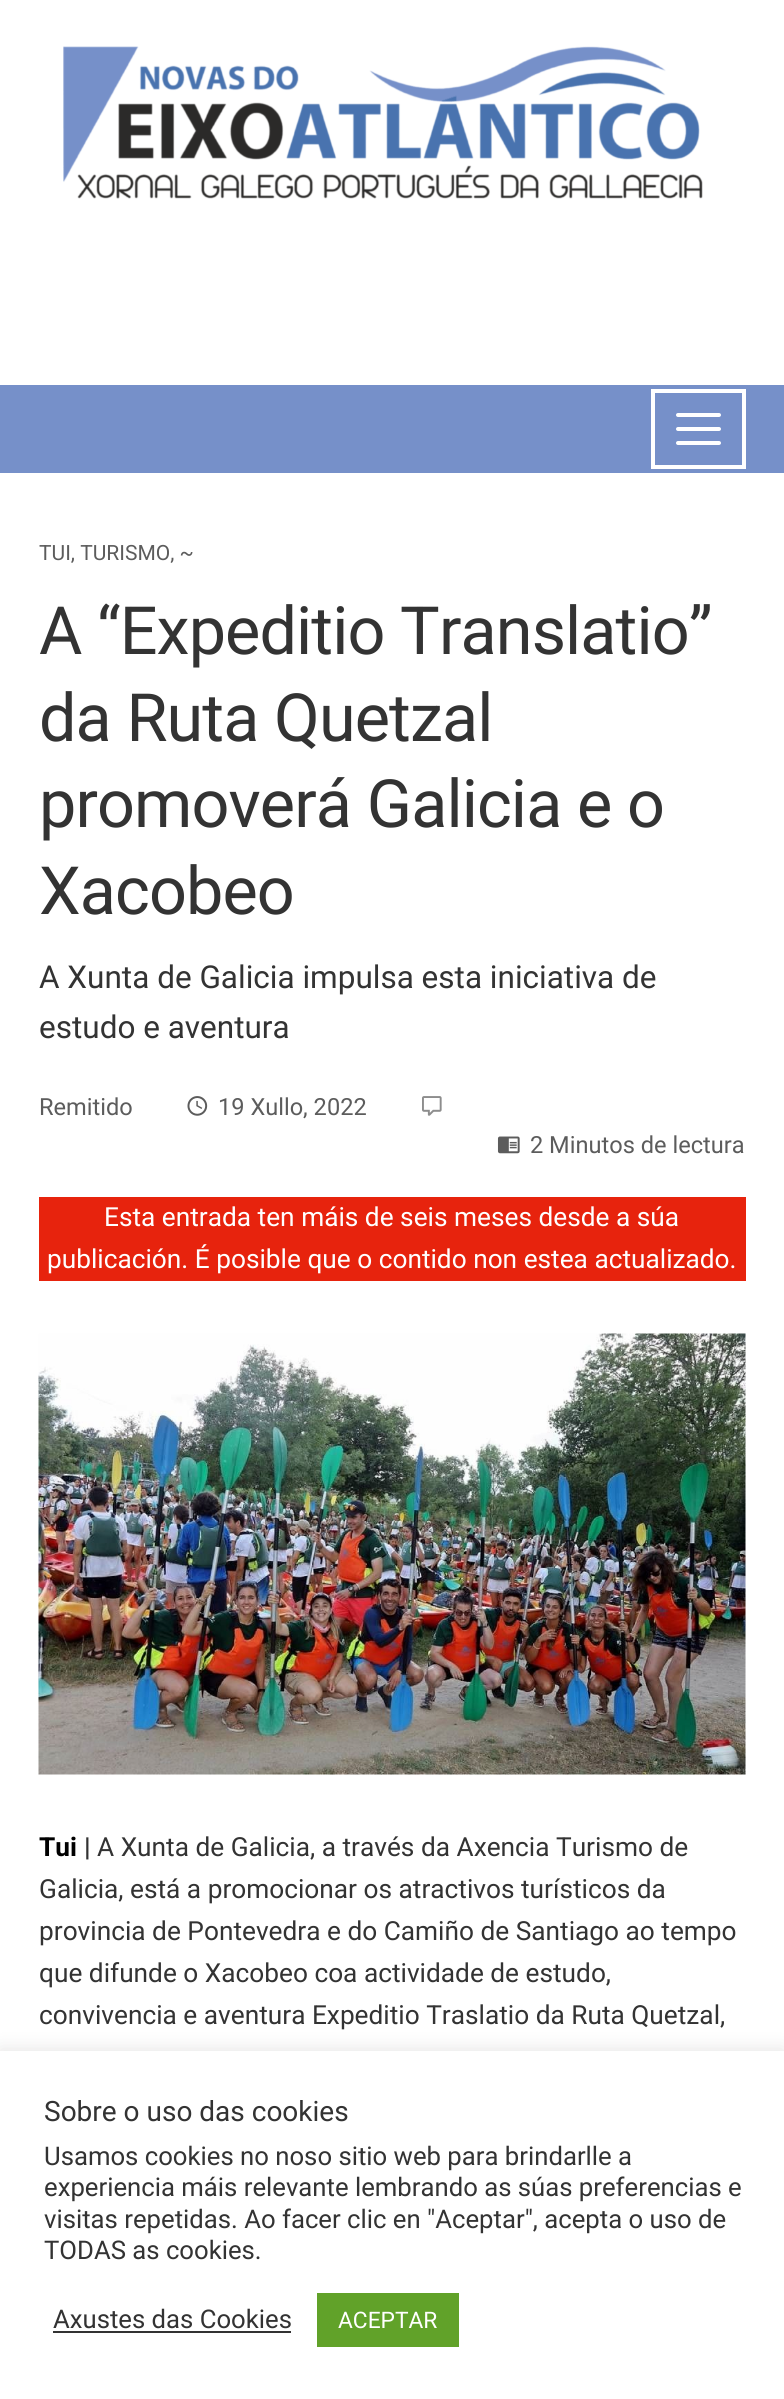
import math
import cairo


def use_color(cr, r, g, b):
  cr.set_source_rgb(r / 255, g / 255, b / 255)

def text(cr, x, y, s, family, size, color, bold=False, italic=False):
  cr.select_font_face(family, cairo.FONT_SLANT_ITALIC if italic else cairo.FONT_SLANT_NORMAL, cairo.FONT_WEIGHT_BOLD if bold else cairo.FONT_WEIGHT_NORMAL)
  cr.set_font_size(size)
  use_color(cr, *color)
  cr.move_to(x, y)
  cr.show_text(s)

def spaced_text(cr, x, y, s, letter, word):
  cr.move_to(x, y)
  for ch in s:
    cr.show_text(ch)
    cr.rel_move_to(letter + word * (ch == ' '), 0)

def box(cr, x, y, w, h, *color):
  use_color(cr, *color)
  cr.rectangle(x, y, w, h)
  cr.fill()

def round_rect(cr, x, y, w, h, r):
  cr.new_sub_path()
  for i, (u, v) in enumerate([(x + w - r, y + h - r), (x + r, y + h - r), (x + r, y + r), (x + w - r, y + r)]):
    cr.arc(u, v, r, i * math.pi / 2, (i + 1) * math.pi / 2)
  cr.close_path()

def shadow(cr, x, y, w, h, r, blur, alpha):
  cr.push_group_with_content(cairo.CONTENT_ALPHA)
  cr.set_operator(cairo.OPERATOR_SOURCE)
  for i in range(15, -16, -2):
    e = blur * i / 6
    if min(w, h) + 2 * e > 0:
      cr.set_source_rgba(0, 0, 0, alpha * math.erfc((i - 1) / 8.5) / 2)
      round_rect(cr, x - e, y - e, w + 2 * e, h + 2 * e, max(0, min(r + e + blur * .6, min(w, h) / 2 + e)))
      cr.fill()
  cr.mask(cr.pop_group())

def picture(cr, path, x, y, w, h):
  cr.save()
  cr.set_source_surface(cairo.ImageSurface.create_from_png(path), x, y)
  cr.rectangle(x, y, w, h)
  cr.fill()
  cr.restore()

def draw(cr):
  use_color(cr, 255, 255, 255)
  cr.paint()
  picture(cr, "img_01.png", 63, 46, 640, 153)
  box(cr, 0, 385, 784, 88, 118, 144, 201)
  cr.rectangle(653, 391, 91, 76)
  use_color(cr, 255, 255, 255)
  cr.set_line_width(4)
  cr.stroke()
  round_rect(cr, 676, 413, 45, 4, 2)
  cr.fill()
  round_rect(cr, 676, 427, 45, 4, 2)
  cr.fill()
  round_rect(cr, 676, 441, 45, 4, 2)
  cr.fill()
  picture(cr, "img_02.png", 187, 1096, 21, 20)
  picture(cr, "img_03.png", 422, 1096, 20, 20)
  picture(cr, "img_04.png", 497, 1136, 23, 18)
  box(cr, 39, 1197, 707, 84, 231, 35, 13)
  picture(cr, "img_05.png", 38, 1333, 708, 442)
  use_color(cr, 172, 171, 171)
  shadow(cr, 0, 2049, 784, 349, 0, 9, 0.3)
  box(cr, 0, 2051, 784, 348, 255, 255, 255)
  box(cr, 53, 2331, 238, 2, 51, 51, 51)
  box(cr, 317, 2293, 142, 54, 97, 162, 41)
  text(cr, 39, 560, "TUI, TURISMO, ~", "Roboto", 21, (92, 92, 92))
  cr.set_font_size(66.5)
  use_color(cr, 51, 51, 51)
  spaced_text(cr, 39, 654, "A “Expeditio Translatio”", -0.9, 0)
  spaced_text(cr, 39, 741, "da Ruta Quetzal", -0.9, 0)
  spaced_text(cr, 39, 827, "promoverá Galicia e o", -0.9, 0)
  spaced_text(cr, 39, 914, "Xacobeo", -0.9, 0)
  text(cr, 39, 988, "A Xunta de Galicia impulsa esta iniciativa de", "Roboto", 31.5, (51, 51, 51))
  text(cr, 39, 1038, "estudo e aventura", "Roboto", 31.5, (51, 51, 51))
  text(cr, 39, 1115, "Remitido", "Roboto", 23.6, (92, 92, 92))
  text(cr, 218, 1115, "19 Xullo, 2022", "Roboto", 23.6, (92, 92, 92))
  text(cr, 530, 1153, "2 Minutos de lectura", "Roboto", 23.6, (92, 92, 92))
  text(cr, 104, 1226, "Esta entrada ten máis de seis meses desde a súa", "Roboto", 26.25, (255, 255, 255))
  text(cr, 47, 1268, "publicación. É posible que o contido non estea actualizado.", "Roboto", 26.25, (255, 255, 255))
  text(cr, 39, 1856, "Tui", "Roboto", 26.25, (0, 0, 0), bold=True)
  text(cr, 84, 1856, "|", "Roboto", 26.25, (51, 51, 51), bold=True)
  text(cr, 97, 1856, "A Xunta de Galicia, a través da Axencia Turismo de", "Roboto", 26.25, (51, 51, 51))
  text(cr, 39, 1898, "Galicia, está a promocionar os atractivos turísticos da", "Roboto", 26.25, (51, 51, 51))
  text(cr, 39, 1940, "provincia de Pontevedra e do Camiño de Santiago ao tempo", "Roboto", 26.25, (51, 51, 51))
  text(cr, 39, 1982, "que difunde o Xacobeo coa actividade de estudo,", "Roboto", 26.25, (51, 51, 51))
  text(cr, 39, 2024, "convivencia e aventura Expeditio Traslatio da Ruta Quetzal,", "Roboto", 26.25, (51, 51, 51))
  text(cr, 44, 2121, "Sobre o uso das cookies", "Roboto", 28, (51, 51, 51))
  text(cr, 44, 2165, "Usamos cookies no noso sitio web para brindarlle a", "Roboto", 25.7, (51, 51, 51))
  text(cr, 44, 2196, "experiencia máis relevante lembrando as súas preferencias e", "Roboto", 25.7, (51, 51, 51))
  text(cr, 44, 2228, "visitas repetidas. Ao facer clic en \"Aceptar\", acepta o uso de", "Roboto", 25.7, (51, 51, 51))
  text(cr, 44, 2259, "TODAS as cookies.", "Roboto", 25.7, (51, 51, 51))
  text(cr, 53, 2328, "Axustes das Cookies", "Roboto", 25.7, (51, 51, 51))
  text(cr, 338, 2328, "ACEPTAR", "Roboto", 22.75, (255, 255, 255))


surface = cairo.ImageSurface(cairo.FORMAT_RGB24, 784, 2399)
cr = cairo.Context(surface)
options = cairo.FontOptions()
options.set_hint_metrics(cairo.HINT_METRICS_OFF)
options.set_hint_style(cairo.HINT_STYLE_NONE)
cr.set_font_options(options)
cr.set_miter_limit(4)
draw(cr)
surface.write_to_png("out.png")
